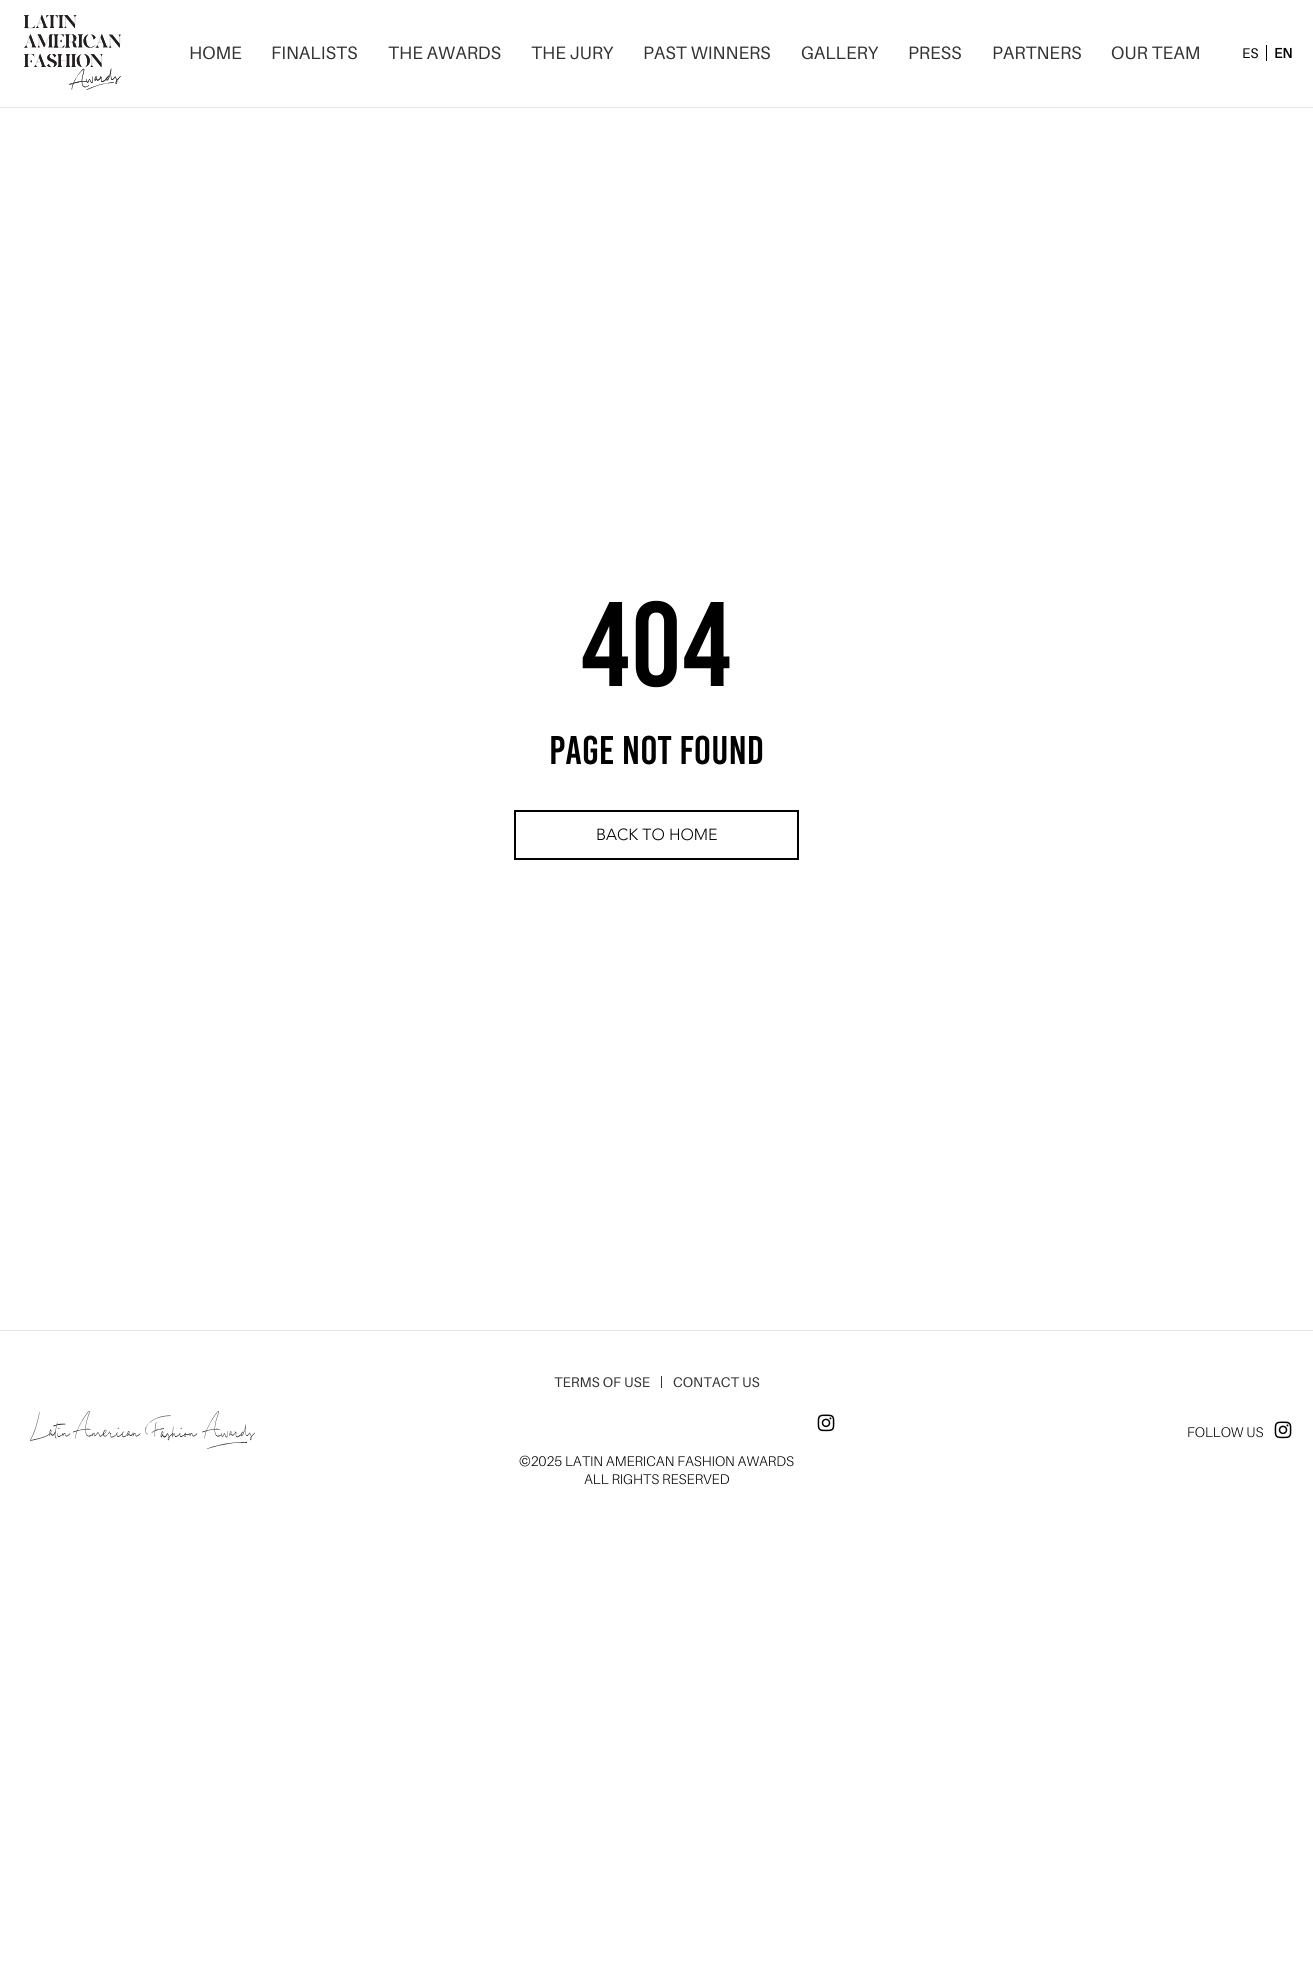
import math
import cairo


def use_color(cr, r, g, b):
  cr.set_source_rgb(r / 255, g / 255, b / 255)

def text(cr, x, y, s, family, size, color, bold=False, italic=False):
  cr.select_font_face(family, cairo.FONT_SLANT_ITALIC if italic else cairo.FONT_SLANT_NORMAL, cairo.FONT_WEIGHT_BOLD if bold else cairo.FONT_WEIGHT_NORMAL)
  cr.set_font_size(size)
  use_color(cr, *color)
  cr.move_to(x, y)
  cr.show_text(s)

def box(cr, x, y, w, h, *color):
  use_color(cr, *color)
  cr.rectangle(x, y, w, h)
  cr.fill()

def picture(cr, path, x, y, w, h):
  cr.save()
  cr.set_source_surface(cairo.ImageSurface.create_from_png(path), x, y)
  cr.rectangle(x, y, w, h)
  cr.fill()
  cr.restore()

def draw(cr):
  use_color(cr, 255, 255, 255)
  cr.paint()
  picture(cr, "img_02.png", 24, 15, 97, 75)
  picture(cr, "img_01.png", 24, 15, 97, 75)
  box(cr, 0, 107, 1313, 1, 232, 232, 232)
  box(cr, 1266, 45, 1, 16, 0, 0, 0)
  cr.rectangle(515, 811, 283, 48)
  cr.stroke()
  box(cr, 0, 1330, 1313, 1, 232, 232, 232)
  picture(cr, "img_03.png", 30, 1411, 225, 38)
  box(cr, 661, 1376, 1, 12, 51, 51, 51)
  picture(cr, "img_04.png", 817, 1414, 18, 18)
  picture(cr, "img_04.png", 1274, 1421, 18, 18)
  text(cr, 189, 59, "HOME", "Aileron", 18, (51, 51, 51))
  text(cr, 271, 59, "FINALISTS", "Aileron", 18, (51, 51, 51))
  text(cr, 388, 59, "THE AWARDS", "Aileron", 18, (51, 51, 51))
  text(cr, 531, 59, "THE JURY", "Aileron", 18, (51, 51, 51))
  text(cr, 643, 59, "PAST WINNERS", "Aileron", 18, (51, 51, 51))
  text(cr, 801, 59, "GALLERY", "Aileron", 18, (51, 51, 51))
  text(cr, 908, 59, "PRESS", "Aileron", 18, (51, 51, 51))
  text(cr, 992, 59, "PARTNERS", "Aileron", 18, (51, 51, 51))
  text(cr, 1111, 59, "OUR TEAM", "Aileron", 18, (51, 51, 51))
  text(cr, 1242, 58, "ES", "Aileron", 14, (0, 0, 0))
  text(cr, 1274, 58, "EN", "Aileron", 14, (0, 0, 0), bold=True)
  text(cr, 581, 686, "404", "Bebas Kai", 120, (0, 0, 0))
  text(cr, 549, 764, "PAGE NOT FOUND", "Bebas Kai", 40, (0, 0, 0))
  text(cr, 596, 840, "BACK TO HOME", "Avenir Light", 16, (0, 0, 0))
  text(cr, 554, 1387, "TERMS OF USE", "Aileron", 14, (51, 51, 51))
  text(cr, 673, 1387, "CONTACT US", "Aileron", 14, (51, 51, 51))
  text(cr, 519, 1466, "©2025 LATIN AMERICAN FASHION AWARDS", "Aileron Light", 14, (0, 0, 0))
  text(cr, 584, 1484, "ALL RIGHTS RESERVED", "Aileron Light", 14, (0, 0, 0))
  text(cr, 1187, 1437, "FOLLOW US", "Aileron Light", 14, (0, 0, 0))


surface = cairo.ImageSurface(cairo.FORMAT_RGB24, 1313, 1972)
cr = cairo.Context(surface)
options = cairo.FontOptions()
options.set_hint_metrics(cairo.HINT_METRICS_OFF)
options.set_hint_style(cairo.HINT_STYLE_NONE)
cr.set_font_options(options)
cr.set_miter_limit(4)
draw(cr)
surface.write_to_png("out.png")
